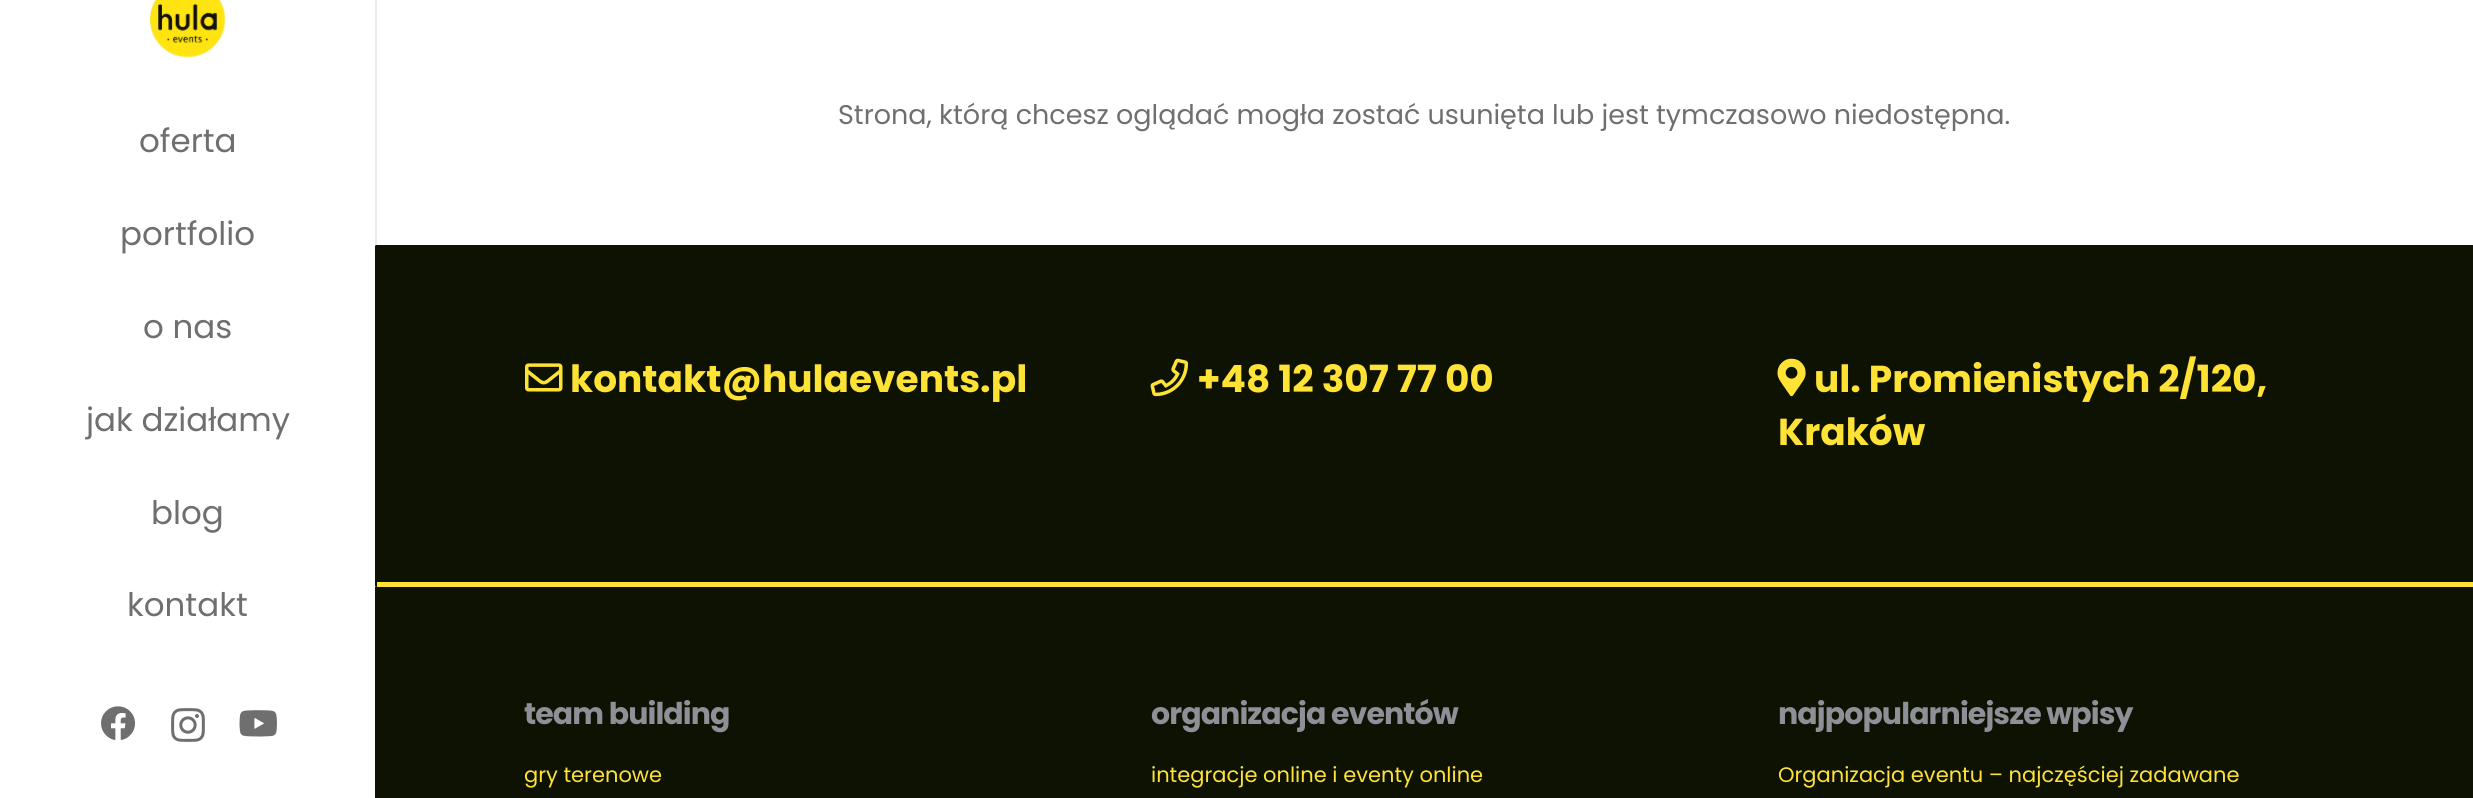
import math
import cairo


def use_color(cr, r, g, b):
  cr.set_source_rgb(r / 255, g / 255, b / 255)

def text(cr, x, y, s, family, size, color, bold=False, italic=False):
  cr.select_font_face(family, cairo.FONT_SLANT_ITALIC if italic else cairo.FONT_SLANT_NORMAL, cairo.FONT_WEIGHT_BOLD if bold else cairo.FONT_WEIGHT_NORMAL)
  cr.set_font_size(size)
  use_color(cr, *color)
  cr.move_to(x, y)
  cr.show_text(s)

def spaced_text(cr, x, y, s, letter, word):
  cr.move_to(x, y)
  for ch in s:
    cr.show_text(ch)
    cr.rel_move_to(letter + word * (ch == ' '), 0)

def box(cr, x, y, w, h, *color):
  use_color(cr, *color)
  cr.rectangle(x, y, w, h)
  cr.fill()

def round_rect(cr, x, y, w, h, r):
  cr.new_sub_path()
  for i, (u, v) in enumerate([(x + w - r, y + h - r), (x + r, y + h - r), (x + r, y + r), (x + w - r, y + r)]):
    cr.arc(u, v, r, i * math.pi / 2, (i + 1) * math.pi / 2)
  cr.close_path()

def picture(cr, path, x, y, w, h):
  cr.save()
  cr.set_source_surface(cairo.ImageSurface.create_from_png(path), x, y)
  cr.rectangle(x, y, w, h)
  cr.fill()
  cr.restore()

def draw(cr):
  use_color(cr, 255, 255, 255)
  cr.paint()
  use_color(cr, 13, 18, 2)
  round_rect(cr, 375, 245, 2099, 342, 1.5)
  cr.fill()
  cr.set_source_rgba(0, 0, 0, 0.08)
  cr.rectangle(375, 0, 2, 587)
  cr.fill()
  picture(cr, "img_01.png", 150, 0, 75, 58)
  picture(cr, "img_02.png", 101, 706, 35, 35)
  picture(cr, "img_03.png", 171, 708, 34, 34)
  picture(cr, "img_04.png", 239, 710, 38, 27)
  box(cr, 377, 582, 2096, 5, 254, 226, 53)
  picture(cr, "img_05.png", 525, 363, 38, 29)
  picture(cr, "img_06.png", 1150, 358, 39, 39)
  picture(cr, "img_07.png", 1777, 358, 29, 39)
  box(cr, 375, 587, 2098, 211, 13, 18, 2)
  text(cr, 838, 124, "Strona, którą chcesz oglądać mogła zostać usunięta lub jest tymczasowo niedostępna.", "Poppins", 27, (111, 111, 111))
  text(cr, 139, 152, "oferta", "Poppins", 32.5, (111, 111, 111))
  text(cr, 120, 245, "portfolio", "Poppins", 32.5, (111, 111, 111))
  text(cr, 143, 338, "o nas", "Poppins", 32.5, (111, 111, 111))
  text(cr, 86, 431, "jak działamy", "Poppins", 32.5, (111, 111, 111))
  text(cr, 151, 524, "blog", "Poppins", 32.5, (111, 111, 111))
  text(cr, 127, 616, "kontakt", "Poppins", 32.5, (111, 111, 111))
  text(cr, 570, 392, "kontakt@hulaevents.pl", "Poppins", 37.5, (254, 226, 53), bold=True)
  text(cr, 1197, 392, "+48 12 307 77 00", "Poppins", 37.5, (254, 226, 53), bold=True)
  text(cr, 1814, 392, "ul. Promienistych 2/120,", "Poppins", 37.5, (254, 226, 53), bold=True)
  text(cr, 1778, 445, "Kraków", "Poppins", 37.5, (254, 226, 53), bold=True)
  cr.set_font_size(30)
  use_color(cr, 141, 144, 150)
  spaced_text(cr, 524, 724, "team building", -0.9, 0)
  text(cr, 524, 782, "gry terenowe", "Poppins", 21, (254, 226, 53))
  cr.select_font_face("Poppins", cairo.FONT_SLANT_NORMAL, cairo.FONT_WEIGHT_BOLD)
  cr.set_font_size(30)
  use_color(cr, 141, 144, 150)
  spaced_text(cr, 1151, 724, "organizacja eventów", -0.9, 0)
  text(cr, 1151, 782, "integracje online i eventy online", "Poppins", 21, (254, 226, 53))
  cr.select_font_face("Poppins", cairo.FONT_SLANT_NORMAL, cairo.FONT_WEIGHT_BOLD)
  cr.set_font_size(30)
  use_color(cr, 141, 144, 150)
  spaced_text(cr, 1778, 724, "najpopularniejsze wpisy", -0.9, 0)
  text(cr, 1778, 782, "Organizacja eventu – najczęściej zadawane", "Poppins", 21, (254, 226, 53))


surface = cairo.ImageSurface(cairo.FORMAT_RGB24, 2473, 798)
cr = cairo.Context(surface)
options = cairo.FontOptions()
options.set_hint_metrics(cairo.HINT_METRICS_OFF)
options.set_hint_style(cairo.HINT_STYLE_NONE)
cr.set_font_options(options)
cr.set_miter_limit(4)
draw(cr)
surface.write_to_png("out.png")
